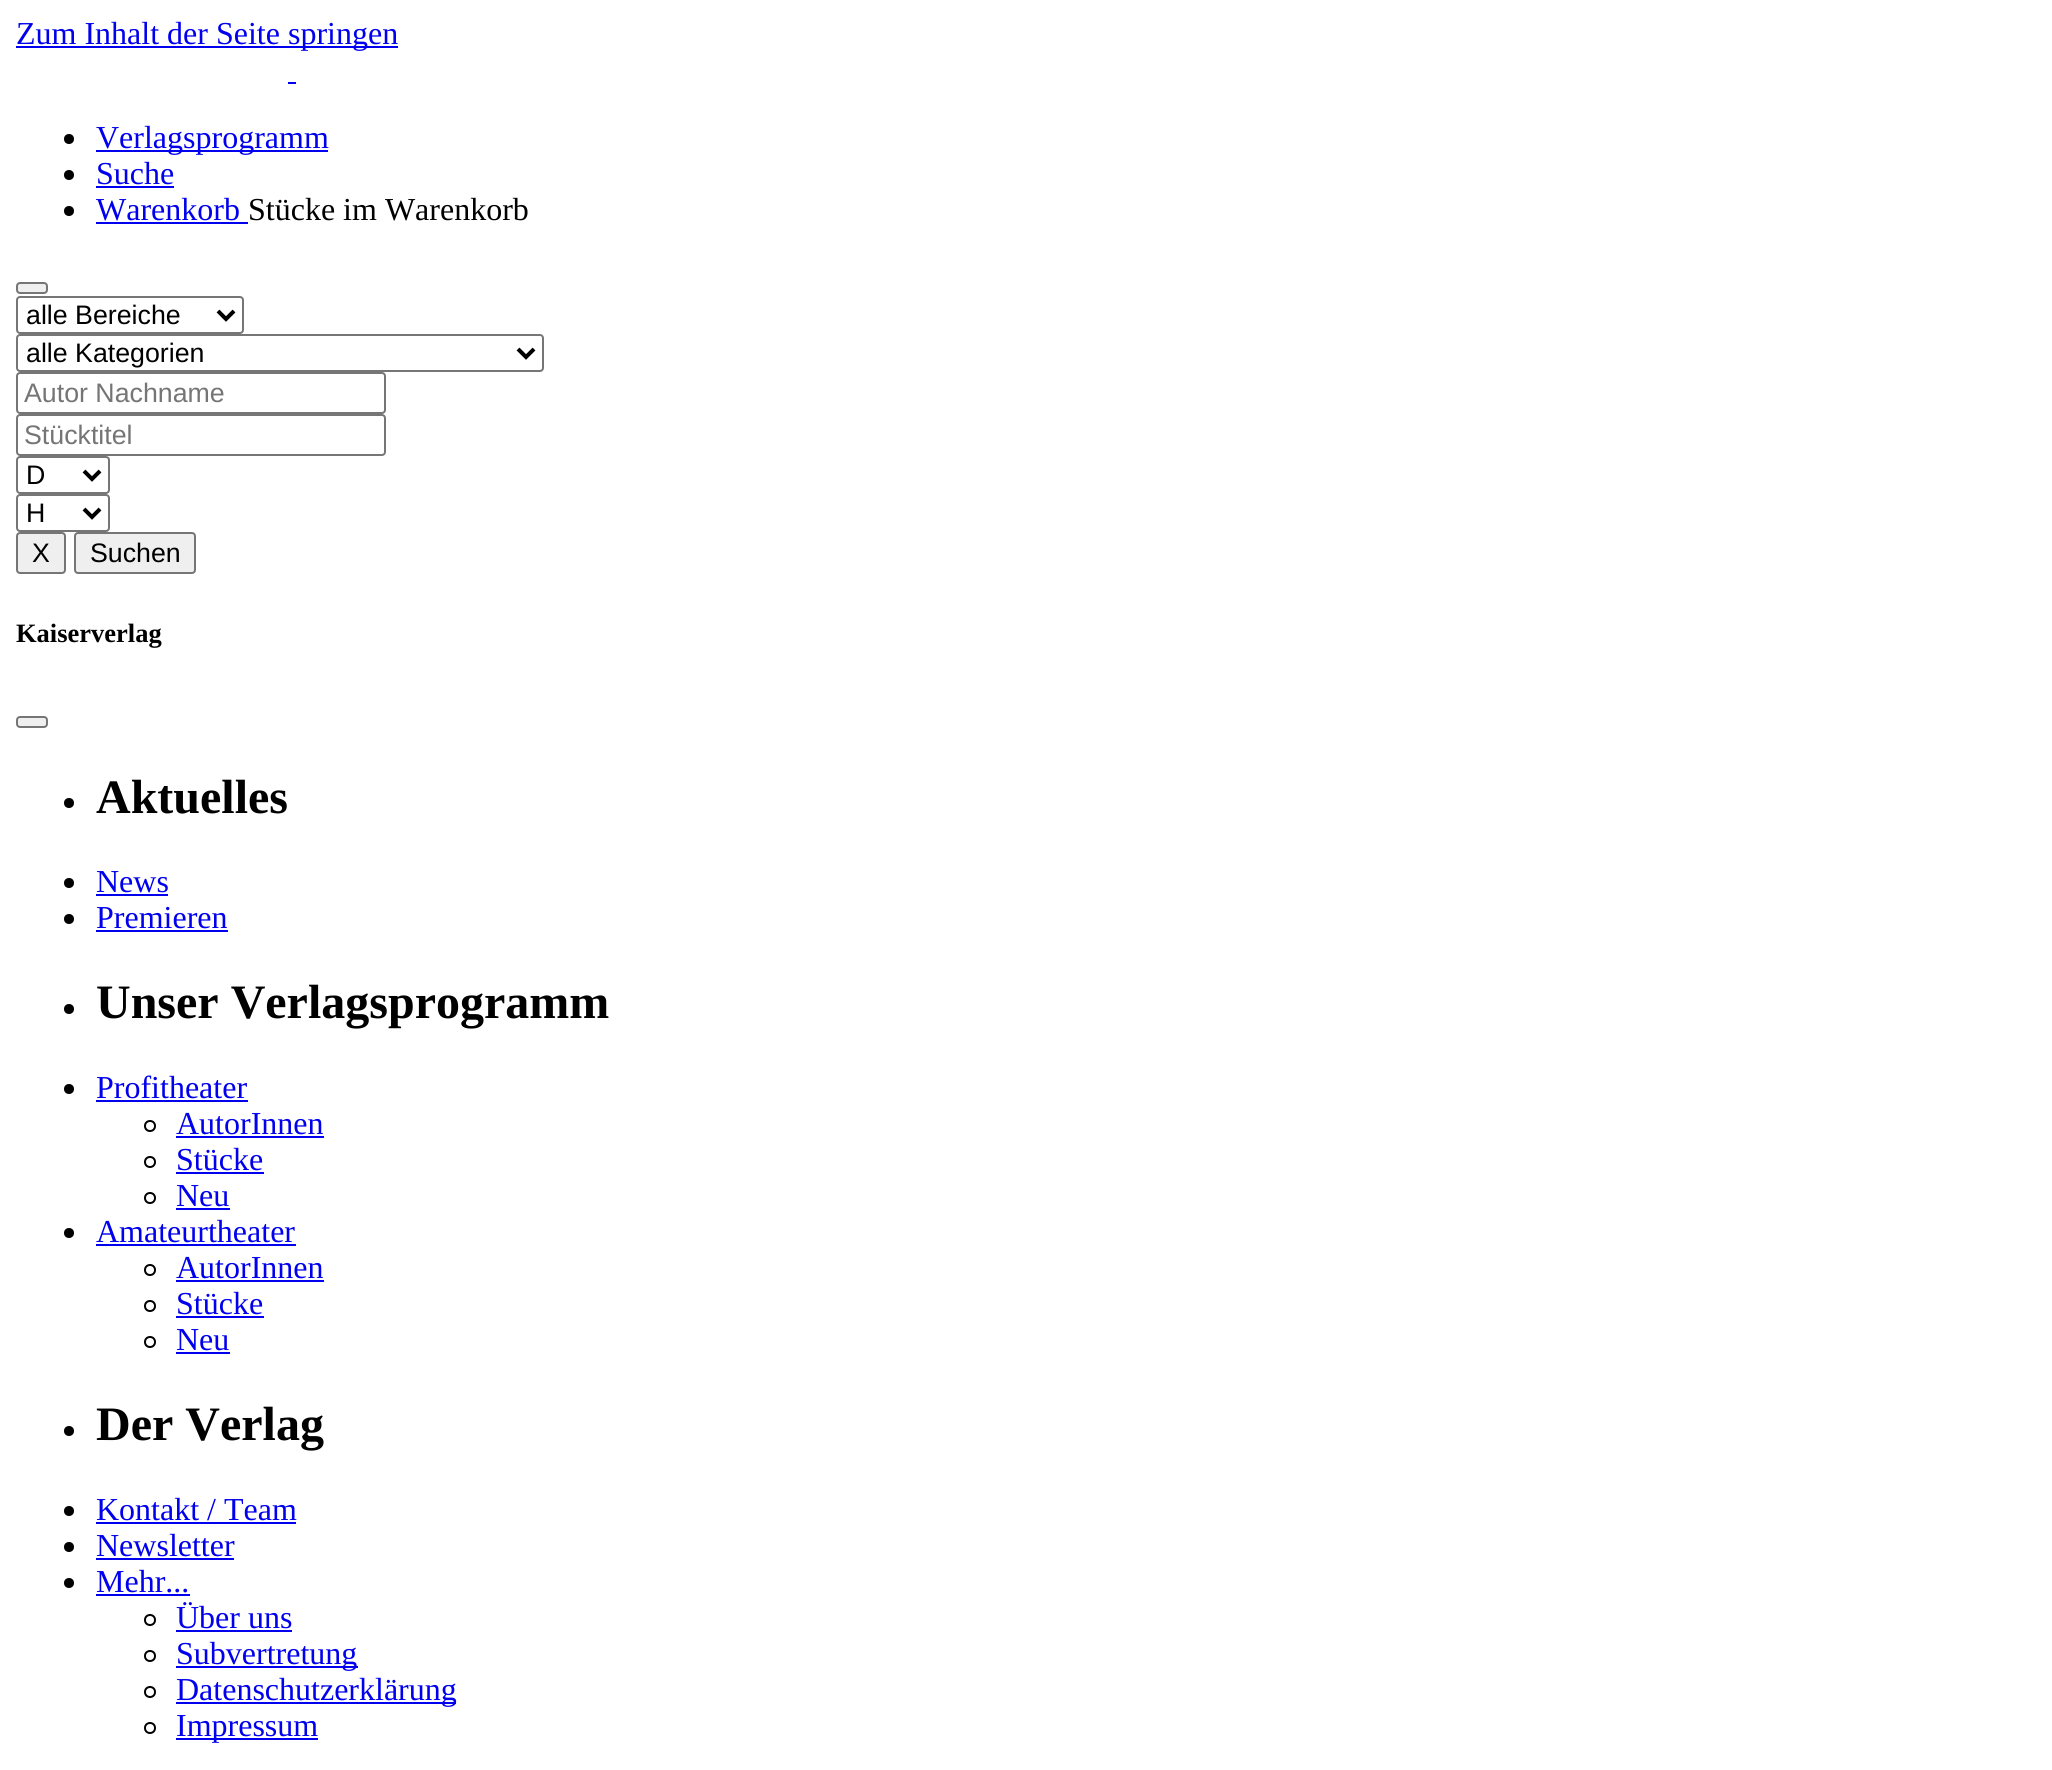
import math
import cairo


def use_color(cr, r, g, b):
  cr.set_source_rgb(r / 255, g / 255, b / 255)

def text(cr, x, y, s, family, size, color, bold=False, italic=False):
  cr.select_font_face(family, cairo.FONT_SLANT_ITALIC if italic else cairo.FONT_SLANT_NORMAL, cairo.FONT_WEIGHT_BOLD if bold else cairo.FONT_WEIGHT_NORMAL)
  cr.set_font_size(size)
  use_color(cr, *color)
  cr.move_to(x, y)
  cr.show_text(s)

def box(cr, x, y, w, h, *color):
  use_color(cr, *color)
  cr.rectangle(x, y, w, h)
  cr.fill()

def round_rect(cr, x, y, w, h, r):
  cr.new_sub_path()
  for i, (u, v) in enumerate([(x + w - r, y + h - r), (x + r, y + h - r), (x + r, y + r), (x + w - r, y + r)]):
    cr.arc(u, v, r, i * math.pi / 2, (i + 1) * math.pi / 2)
  cr.close_path()

def draw(cr):
  use_color(cr, 255, 255, 255)
  cr.paint()
  box(cr, 16, 46, 382, 2, 0, 0, 238)
  box(cr, 288, 82, 8, 2, 0, 0, 238)
  use_color(cr, 0, 0, 0)
  cr.arc(69, 139, 5, 0, 2 * math.pi)
  cr.fill()
  box(cr, 96, 150, 232, 2, 0, 0, 238)
  use_color(cr, 0, 0, 0)
  cr.arc(69, 175, 5, 0, 2 * math.pi)
  cr.fill()
  box(cr, 96, 186, 78, 2, 0, 0, 238)
  use_color(cr, 0, 0, 0)
  cr.arc(69, 211, 5, 0, 2 * math.pi)
  cr.fill()
  box(cr, 96, 222, 152, 2, 0, 0, 238)
  use_color(cr, 239, 239, 239)
  round_rect(cr, 17, 283, 30, 10, 3)
  cr.fill_preserve()
  use_color(cr, 118, 118, 118)
  cr.stroke()
  round_rect(cr, 17, 297, 226, 36, 3)
  cr.stroke()
  cr.new_path()
  cr.move_to(218, 311)
  cr.line_to(226, 319)
  cr.line_to(234, 311)
  use_color(cr, 0, 0, 0)
  cr.set_line_width(4)
  cr.stroke()
  round_rect(cr, 17, 335, 526, 36, 3)
  use_color(cr, 118, 118, 118)
  cr.set_line_width(2)
  cr.stroke()
  cr.new_path()
  cr.move_to(518, 349)
  cr.line_to(526, 357)
  cr.line_to(534, 349)
  use_color(cr, 0, 0, 0)
  cr.set_line_width(4)
  cr.stroke()
  round_rect(cr, 17, 373, 368, 40, 3)
  use_color(cr, 118, 118, 118)
  cr.set_line_width(2)
  cr.stroke()
  round_rect(cr, 17, 415, 368, 40, 3)
  cr.stroke()
  round_rect(cr, 17, 457, 92, 36, 3)
  cr.stroke()
  cr.new_path()
  cr.move_to(84, 471)
  cr.line_to(92, 479)
  cr.line_to(100, 471)
  use_color(cr, 0, 0, 0)
  cr.set_line_width(4)
  cr.stroke()
  round_rect(cr, 17, 495, 92, 36, 3)
  use_color(cr, 118, 118, 118)
  cr.set_line_width(2)
  cr.stroke()
  cr.new_path()
  cr.move_to(84, 509)
  cr.line_to(92, 517)
  cr.line_to(100, 509)
  use_color(cr, 0, 0, 0)
  cr.set_line_width(4)
  cr.stroke()
  use_color(cr, 239, 239, 239)
  round_rect(cr, 17, 533, 48, 40, 3)
  cr.fill_preserve()
  use_color(cr, 118, 118, 118)
  cr.set_line_width(2)
  cr.stroke()
  use_color(cr, 239, 239, 239)
  round_rect(cr, 75, 533, 120, 40, 3)
  cr.fill_preserve()
  use_color(cr, 118, 118, 118)
  cr.stroke()
  use_color(cr, 239, 239, 239)
  round_rect(cr, 17, 717, 30, 10, 3)
  cr.fill_preserve()
  use_color(cr, 118, 118, 118)
  cr.stroke()
  use_color(cr, 0, 0, 0)
  cr.arc(69, 803, 5, 0, 2 * math.pi)
  cr.fill()
  cr.arc(69, 883, 5, 0, 2 * math.pi)
  cr.fill()
  box(cr, 96, 894, 72, 2, 0, 0, 238)
  use_color(cr, 0, 0, 0)
  cr.arc(69, 919, 5, 0, 2 * math.pi)
  cr.fill()
  box(cr, 96, 930, 132, 2, 0, 0, 238)
  use_color(cr, 0, 0, 0)
  cr.arc(69, 1009, 5, 0, 2 * math.pi)
  cr.fill()
  cr.arc(69, 1089, 5, 0, 2 * math.pi)
  cr.fill()
  box(cr, 96, 1100, 152, 2, 0, 0, 238)
  cr.arc(150, 1126, 5, 0, 2 * math.pi)
  use_color(cr, 0, 0, 0)
  cr.stroke()
  box(cr, 176, 1136, 148, 2, 0, 0, 238)
  cr.arc(150, 1162, 5, 0, 2 * math.pi)
  use_color(cr, 0, 0, 0)
  cr.stroke()
  box(cr, 176, 1172, 88, 2, 0, 0, 238)
  cr.arc(150, 1198, 5, 0, 2 * math.pi)
  use_color(cr, 0, 0, 0)
  cr.stroke()
  box(cr, 176, 1208, 54, 2, 0, 0, 238)
  use_color(cr, 0, 0, 0)
  cr.arc(69, 1233, 5, 0, 2 * math.pi)
  cr.fill()
  box(cr, 96, 1244, 200, 2, 0, 0, 238)
  cr.arc(150, 1270, 5, 0, 2 * math.pi)
  use_color(cr, 0, 0, 0)
  cr.stroke()
  box(cr, 176, 1280, 148, 2, 0, 0, 238)
  cr.arc(150, 1306, 5, 0, 2 * math.pi)
  use_color(cr, 0, 0, 0)
  cr.stroke()
  box(cr, 176, 1316, 88, 2, 0, 0, 238)
  cr.arc(150, 1342, 5, 0, 2 * math.pi)
  use_color(cr, 0, 0, 0)
  cr.stroke()
  box(cr, 176, 1352, 54, 2, 0, 0, 238)
  use_color(cr, 0, 0, 0)
  cr.arc(69, 1431, 5, 0, 2 * math.pi)
  cr.fill()
  cr.arc(69, 1511, 5, 0, 2 * math.pi)
  cr.fill()
  box(cr, 96, 1522, 200, 2, 0, 0, 238)
  use_color(cr, 0, 0, 0)
  cr.arc(69, 1547, 5, 0, 2 * math.pi)
  cr.fill()
  box(cr, 96, 1558, 138, 2, 0, 0, 238)
  use_color(cr, 0, 0, 0)
  cr.arc(69, 1583, 5, 0, 2 * math.pi)
  cr.fill()
  box(cr, 96, 1594, 94, 2, 0, 0, 238)
  cr.arc(150, 1620, 5, 0, 2 * math.pi)
  use_color(cr, 0, 0, 0)
  cr.stroke()
  box(cr, 176, 1630, 116, 2, 0, 0, 238)
  cr.arc(150, 1656, 5, 0, 2 * math.pi)
  use_color(cr, 0, 0, 0)
  cr.stroke()
  box(cr, 176, 1666, 182, 2, 0, 0, 238)
  cr.arc(150, 1692, 5, 0, 2 * math.pi)
  use_color(cr, 0, 0, 0)
  cr.stroke()
  box(cr, 176, 1702, 280, 2, 0, 0, 238)
  cr.arc(150, 1728, 5, 0, 2 * math.pi)
  use_color(cr, 0, 0, 0)
  cr.stroke()
  box(cr, 176, 1738, 142, 2, 0, 0, 238)
  text(cr, 16, 44, "Zum Inhalt der Seite springen", "Liberation Serif", 32, (0, 0, 238))
  text(cr, 96, 148, "Verlagsprogramm", "Liberation Serif", 32, (0, 0, 238))
  text(cr, 96, 184, "Suche", "Liberation Serif", 32, (0, 0, 238))
  text(cr, 96, 220, "Warenkorb", "Liberation Serif", 32, (0, 0, 238))
  text(cr, 248, 220, "Stücke im Warenkorb", "Liberation Serif", 32, (0, 0, 0))
  text(cr, 26, 324, "alle Bereiche", "Liberation Sans", 26.75, (0, 0, 0))
  text(cr, 26, 362, "alle Kategorien", "Liberation Sans", 26.75, (0, 0, 0))
  text(cr, 24, 402, "Autor Nachname", "Liberation Sans", 26.75, (117, 117, 117))
  text(cr, 24, 444, "Stücktitel", "Liberation Sans", 26.75, (117, 117, 117))
  text(cr, 26, 484, "D", "Liberation Sans", 26.75, (0, 0, 0))
  text(cr, 26, 522, "H", "Liberation Sans", 26.75, (0, 0, 0))
  text(cr, 32, 562, "X", "Liberation Sans", 26.75, (0, 0, 0))
  text(cr, 90, 562, "Suchen", "Liberation Sans", 26.75, (0, 0, 0))
  text(cr, 16, 642, "Kaiserverlag", "Liberation Serif", 26.5, (0, 0, 0), bold=True)
  text(cr, 96, 813, "Aktuelles", "Liberation Serif", 48, (0, 0, 0), bold=True)
  text(cr, 96, 892, "News", "Liberation Serif", 32, (0, 0, 238))
  text(cr, 96, 928, "Premieren", "Liberation Serif", 32, (0, 0, 238))
  text(cr, 96, 1018, "Unser Verlagsprogramm", "Liberation Serif", 48, (0, 0, 0), bold=True)
  text(cr, 96, 1098, "Profitheater", "Liberation Serif", 32, (0, 0, 238))
  text(cr, 176, 1134, "AutorInnen", "Liberation Serif", 32, (0, 0, 238))
  text(cr, 176, 1170, "Stücke", "Liberation Serif", 32, (0, 0, 238))
  text(cr, 176, 1206, "Neu", "Liberation Serif", 32, (0, 0, 238))
  text(cr, 96, 1242, "Amateurtheater", "Liberation Serif", 32, (0, 0, 238))
  text(cr, 176, 1278, "AutorInnen", "Liberation Serif", 32, (0, 0, 238))
  text(cr, 176, 1314, "Stücke", "Liberation Serif", 32, (0, 0, 238))
  text(cr, 176, 1350, "Neu", "Liberation Serif", 32, (0, 0, 238))
  text(cr, 96, 1440, "Der Verlag", "Liberation Serif", 48, (0, 0, 0), bold=True)
  text(cr, 96, 1520, "Kontakt / Team", "Liberation Serif", 32, (0, 0, 238))
  text(cr, 96, 1556, "Newsletter", "Liberation Serif", 32, (0, 0, 238))
  text(cr, 96, 1592, "Mehr...", "Liberation Serif", 32, (0, 0, 238))
  text(cr, 176, 1628, "Über uns", "Liberation Serif", 32, (0, 0, 238))
  text(cr, 176, 1664, "Subvertretung", "Liberation Serif", 32, (0, 0, 238))
  text(cr, 176, 1700, "Datenschutzerklärung", "Liberation Serif", 32, (0, 0, 238))
  text(cr, 176, 1736, "Impressum", "Liberation Serif", 32, (0, 0, 238))


surface = cairo.ImageSurface(cairo.FORMAT_RGB24, 2052, 1770)
cr = cairo.Context(surface)
options = cairo.FontOptions()
options.set_hint_metrics(cairo.HINT_METRICS_OFF)
options.set_hint_style(cairo.HINT_STYLE_NONE)
cr.set_font_options(options)
cr.set_miter_limit(4)
draw(cr)
surface.write_to_png("out.png")
